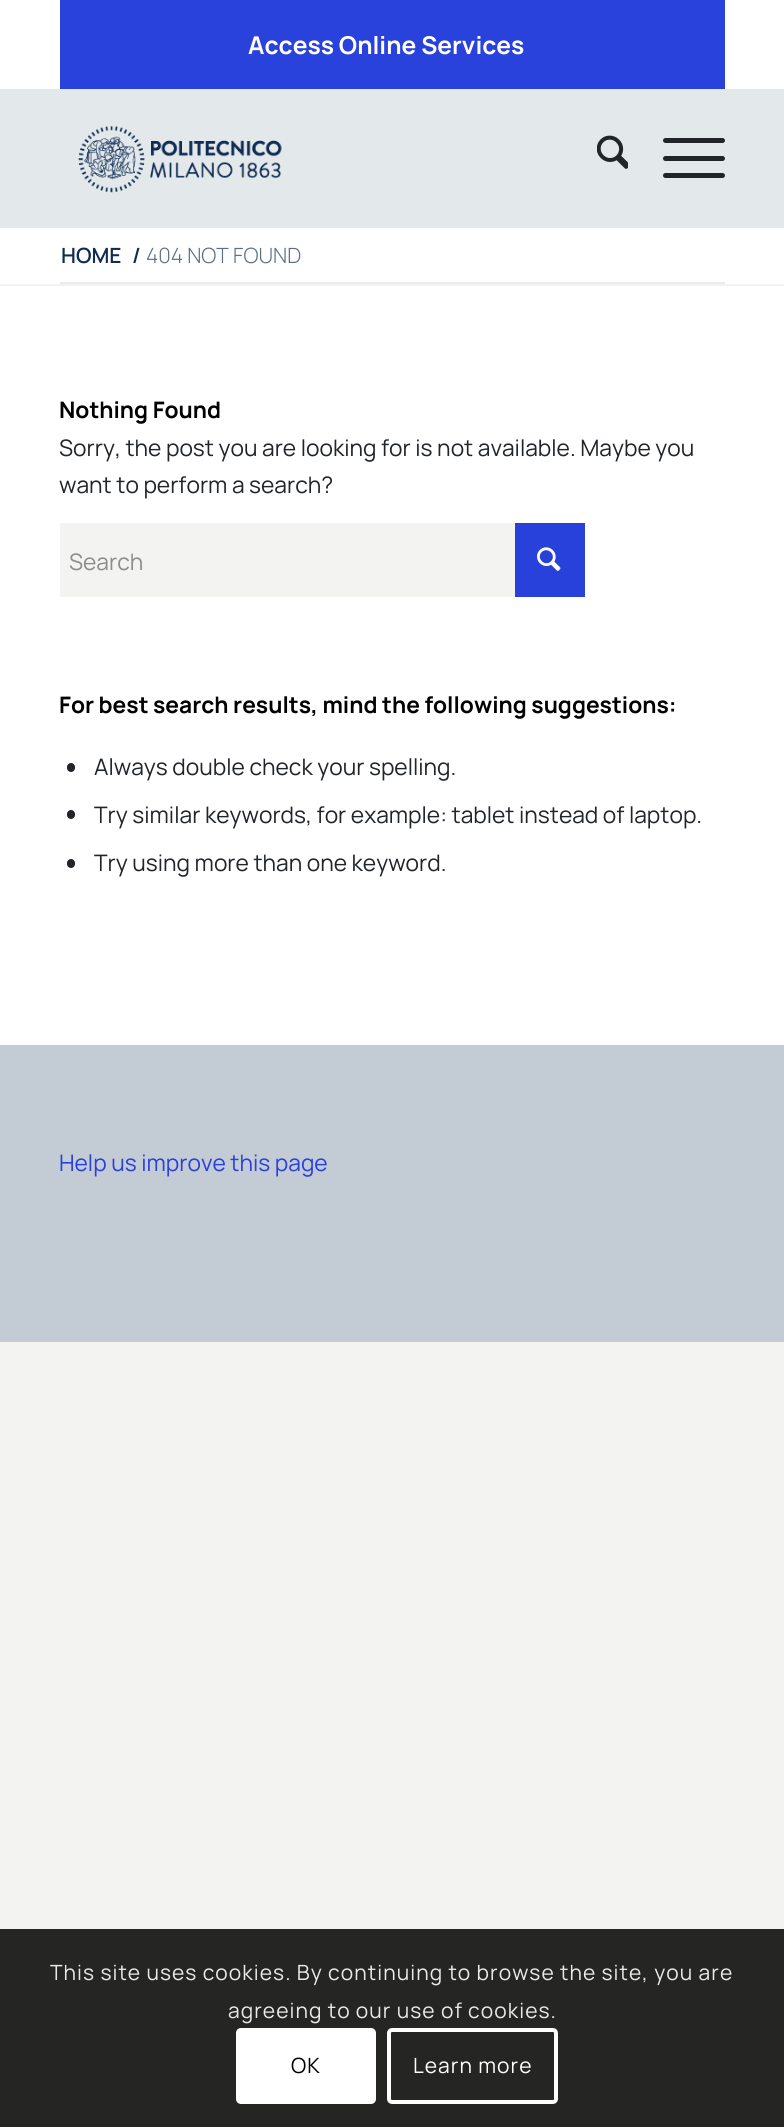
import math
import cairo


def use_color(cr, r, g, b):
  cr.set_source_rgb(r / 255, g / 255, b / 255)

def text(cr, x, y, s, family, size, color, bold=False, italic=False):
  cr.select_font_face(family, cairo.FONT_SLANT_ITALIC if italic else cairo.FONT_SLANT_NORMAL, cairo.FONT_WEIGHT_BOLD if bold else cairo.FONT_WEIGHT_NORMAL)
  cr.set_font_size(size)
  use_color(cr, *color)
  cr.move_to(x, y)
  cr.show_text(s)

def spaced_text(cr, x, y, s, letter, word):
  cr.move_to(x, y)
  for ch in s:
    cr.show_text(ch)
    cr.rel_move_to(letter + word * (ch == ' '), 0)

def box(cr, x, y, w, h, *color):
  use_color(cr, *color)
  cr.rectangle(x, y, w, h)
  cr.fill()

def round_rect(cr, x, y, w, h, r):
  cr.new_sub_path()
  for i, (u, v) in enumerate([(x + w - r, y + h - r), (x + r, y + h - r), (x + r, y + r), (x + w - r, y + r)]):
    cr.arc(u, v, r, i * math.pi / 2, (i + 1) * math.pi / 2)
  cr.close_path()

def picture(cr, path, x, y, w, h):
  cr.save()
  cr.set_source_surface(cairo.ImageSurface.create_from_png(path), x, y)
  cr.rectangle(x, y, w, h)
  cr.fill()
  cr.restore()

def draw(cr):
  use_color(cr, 243, 243, 241)
  cr.paint()
  box(cr, 0, 0, 784, 89, 255, 255, 255)
  box(cr, 60, 0, 665, 89, 41, 66, 219)
  box(cr, 0, 89, 784, 139, 227, 232, 235)
  picture(cr, "img_01.png", 78, 125, 204, 68)
  picture(cr, "img_02.png", 597, 135, 31, 34)
  use_color(cr, 33, 37, 41)
  round_rect(cr, 663, 156, 62, 5, 2.5)
  cr.fill()
  round_rect(cr, 663, 138, 62, 5, 2.5)
  cr.fill()
  round_rect(cr, 663, 173, 62, 5, 2.5)
  cr.fill()
  box(cr, 0, 228, 784, 56, 255, 255, 255)
  box(cr, 60, 282, 665, 2, 235, 235, 235)
  box(cr, 0, 286, 784, 759, 255, 255, 255)
  box(cr, 515, 523, 70, 74, 41, 65, 219)
  box(cr, 60, 523, 455, 74, 243, 243, 241)
  picture(cr, "img_03.png", 537, 547, 24, 24)
  use_color(cr, 33, 37, 41)
  round_rect(cr, 67, 763, 8, 9, 4)
  cr.fill()
  round_rect(cr, 67, 810, 8, 9, 4)
  cr.fill()
  round_rect(cr, 67, 859, 8, 9, 4)
  cr.fill()
  box(cr, 0, 1045, 784, 297, 195, 203, 212)
  box(cr, 0, 1929, 784, 198, 37, 37, 36)
  use_color(cr, 255, 255, 255)
  round_rect(cr, 236, 2028, 140, 76, 5)
  cr.fill()
  round_rect(cr, 389, 2030, 167, 72, 3)
  cr.set_line_width(4)
  cr.stroke()
  text(cr, 248, 54, "Access Online Services", "Manrope", 24.5, (255, 255, 255), bold=True)
  text(cr, 61, 263, "HOME", "Manrope SemiBold", 21, (16, 44, 83))
  text(cr, 132, 263, "/", "Manrope SemiBold", 21, (16, 44, 83))
  text(cr, 146, 263, "404 NOT FOUND", "Manrope Light", 21, (92, 111, 130))
  text(cr, 59, 418, "Nothing Found", "Manrope", 22.75, (0, 0, 0), bold=True)
  text(cr, 59, 456, "Sorry, the post you are looking for is not available. Maybe you", "Manrope", 22.75, (33, 37, 41))
  text(cr, 59, 493, "want to perform a search?", "Manrope", 22.75, (33, 37, 41))
  text(cr, 69, 570, "Search", "Manrope", 22.75, (138, 140, 141))
  text(cr, 59, 713, "For best search results, mind the following suggestions:", "Manrope", 22.75, (0, 0, 0), bold=True)
  text(cr, 94, 775, "Always double check your spelling.", "Manrope", 22.75, (33, 37, 41))
  text(cr, 94, 823, "Try similar keywords, for example: tablet instead of laptop.", "Manrope", 22.75, (33, 37, 41))
  text(cr, 94, 871, "Try using more than one keyword.", "Manrope", 22.75, (33, 37, 41))
  text(cr, 59, 1171, "Help us improve this page", "Manrope", 22.75, (41, 65, 219))
  cr.set_font_size(21)
  use_color(cr, 233, 233, 233)
  spaced_text(cr, 50, 1980, "This site uses cookies. By continuing to browse the site, you are", 1.05, 0)
  spaced_text(cr, 228, 2018, "agreeing to our use of cookies.", 1.05, 0)
  use_color(cr, 0, 0, 0)
  spaced_text(cr, 291, 2073, "OK", 1.05, 0)
  use_color(cr, 255, 255, 255)
  spaced_text(cr, 413, 2073, "Learn more", 1.05, 0)


surface = cairo.ImageSurface(cairo.FORMAT_RGB24, 784, 2127)
cr = cairo.Context(surface)
options = cairo.FontOptions()
options.set_hint_metrics(cairo.HINT_METRICS_OFF)
options.set_hint_style(cairo.HINT_STYLE_NONE)
cr.set_font_options(options)
cr.set_miter_limit(4)
draw(cr)
surface.write_to_png("out.png")
